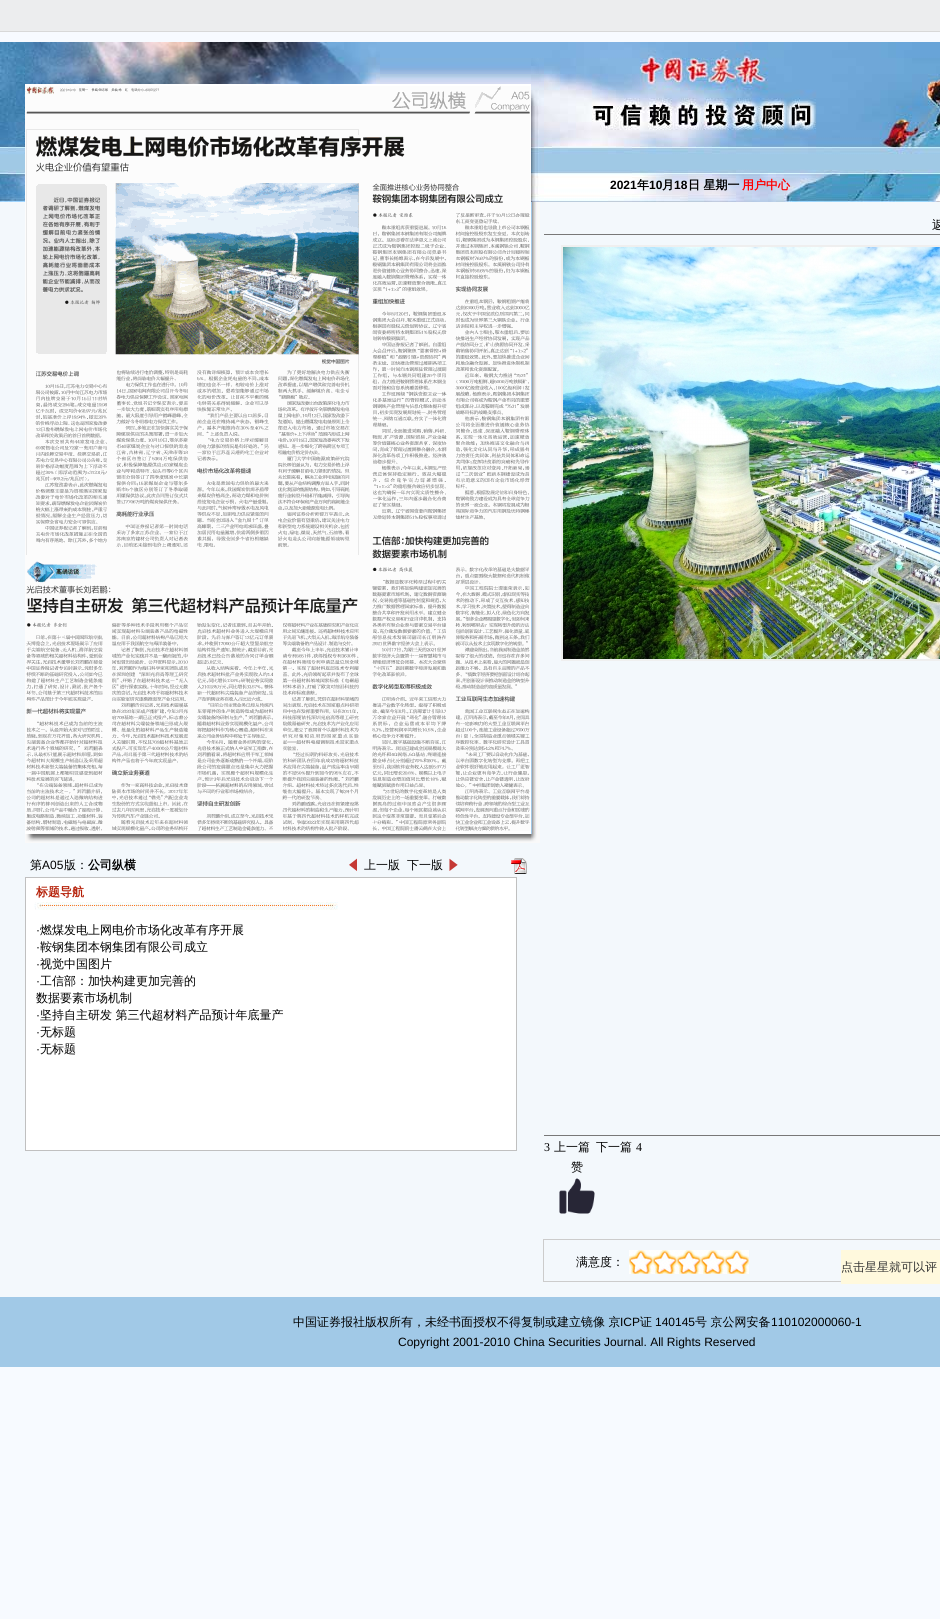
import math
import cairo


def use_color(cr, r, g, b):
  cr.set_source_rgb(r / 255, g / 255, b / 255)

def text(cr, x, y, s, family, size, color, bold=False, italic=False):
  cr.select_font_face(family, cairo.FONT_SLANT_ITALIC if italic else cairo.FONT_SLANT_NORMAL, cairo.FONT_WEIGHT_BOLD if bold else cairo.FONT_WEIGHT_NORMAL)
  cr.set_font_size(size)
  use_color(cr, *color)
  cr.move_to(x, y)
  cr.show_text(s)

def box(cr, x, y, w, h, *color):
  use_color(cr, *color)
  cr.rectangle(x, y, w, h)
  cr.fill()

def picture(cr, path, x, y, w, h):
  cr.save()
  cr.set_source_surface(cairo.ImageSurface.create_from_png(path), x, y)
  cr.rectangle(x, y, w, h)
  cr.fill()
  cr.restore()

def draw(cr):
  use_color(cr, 247, 250, 255)
  cr.paint()
  box(cr, 0, 0, 940, 31, 236, 237, 238)
  box(cr, 0, 31, 940, 1, 216, 216, 216)
  box(cr, 0, 202, 940, 1095, 243, 248, 252)
  picture(cr, "img_01.png", 0, 42, 25, 160)
  picture(cr, "img_02.png", 380, 42, 151, 42)
  picture(cr, "img_03.png", 25, 42, 355, 42)
  picture(cr, "img_04.png", 531, 202, 9, 632)
  picture(cr, "img_05.png", 531, 42, 13, 160)
  box(cr, 25, 84, 506, 750, 255, 255, 255)
  picture(cr, "img_06.png", 25, 86, 505, 745)
  picture(cr, "img_07.png", 25, 834, 506, 9)
  picture(cr, "img_08.png", 25, 834, 134, 8)
  picture(cr, "img_09.png", 531, 834, 9, 9)
  picture(cr, "img_10.png", 349, 858, 8, 13)
  picture(cr, "img_11.png", 449, 858, 9, 13)
  picture(cr, "img_12.png", 511, 858, 16, 16)
  cr.rectangle(25.5, 877.5, 491, 273)
  use_color(cr, 192, 192, 192)
  cr.set_line_width(1)
  cr.stroke()
  box(cr, 26, 878, 490, 272, 255, 255, 255)
  picture(cr, "img_13.png", 34, 902, 304, 8)
  picture(cr, "img_14.png", 544, 42, 396, 160)
  box(cr, 544, 234, 396, 1, 120, 120, 120)
  box(cr, 561, 245, 379, 416, 239, 239, 239)
  picture(cr, "img_15.png", 563, 247, 377, 412)
  box(cr, 544, 1135, 396, 1, 120, 120, 120)
  picture(cr, "img_16.png", 559, 1178, 36, 36)
  cr.rectangle(543.5, 1239.5, 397, 42)
  use_color(cr, 204, 204, 204)
  cr.stroke()
  picture(cr, "img_17.png", 629, 1250, 120, 24)
  box(cr, 841, 1250, 99, 34, 255, 249, 221)
  box(cr, 0, 1297, 940, 70, 161, 201, 231)
  text(cr, 30, 869, "第", "WenQuanYi Zen Hei Medium", 12, (0, 0, 0))
  text(cr, 42, 869, "A05", "Liberation Sans", 12, (0, 0, 0))
  text(cr, 64, 869, "版：", "WenQuanYi Zen Hei Medium", 12, (0, 0, 0))
  text(cr, 88, 869, "公司纵横", "WenQuanYi Zen Hei", 12, (0, 0, 0), bold=True)
  text(cr, 364, 869, "上一版", "WenQuanYi Zen Hei Medium", 12, (0, 0, 0))
  text(cr, 407, 869, "下一版", "WenQuanYi Zen Hei Medium", 12, (0, 0, 0))
  text(cr, 36, 896, "标题导航", "WenQuanYi Zen Hei", 12, (181, 32, 8), bold=True)
  text(cr, 36, 934, "·", "Liberation Sans", 12, (0, 0, 0))
  text(cr, 40, 934, "燃煤发电上网电价市场化改革有序开展", "WenQuanYi Zen Hei Medium", 12, (0, 0, 0))
  text(cr, 36, 951, "·", "Liberation Sans", 12, (0, 0, 0))
  text(cr, 40, 951, "鞍钢集团本钢集团有限公司成立", "WenQuanYi Zen Hei Medium", 12, (0, 0, 0))
  text(cr, 36, 968, "·", "Liberation Sans", 12, (0, 0, 0))
  text(cr, 40, 968, "视觉中国图片", "WenQuanYi Zen Hei Medium", 12, (0, 0, 0))
  text(cr, 36, 985, "·", "Liberation Sans", 12, (0, 0, 0))
  text(cr, 40, 985, "工信部：加快构建更加完善的", "WenQuanYi Zen Hei Medium", 12, (0, 0, 0))
  text(cr, 36, 1002, "数据要素市场机制", "WenQuanYi Zen Hei Medium", 12, (0, 0, 0))
  text(cr, 36, 1019, "·", "Liberation Sans", 12, (0, 0, 0))
  text(cr, 40, 1019, "坚持自主研发 第三代超材料产品预计年底量产", "WenQuanYi Zen Hei Medium", 12, (0, 0, 0))
  text(cr, 36, 1036, "·", "Liberation Sans", 12, (0, 0, 0))
  text(cr, 40, 1036, "无标题", "WenQuanYi Zen Hei Medium", 12, (0, 0, 0))
  text(cr, 36, 1053, "·", "Liberation Sans", 12, (0, 0, 0))
  text(cr, 40, 1053, "无标题", "WenQuanYi Zen Hei Medium", 12, (0, 0, 0))
  text(cr, 610, 189, "2021", "Liberation Sans", 12, (0, 0, 0), bold=True)
  text(cr, 637, 189, "年", "WenQuanYi Zen Hei", 12, (0, 0, 0), bold=True)
  text(cr, 649, 189, "10", "Liberation Sans", 12, (0, 0, 0), bold=True)
  text(cr, 662, 189, "月", "WenQuanYi Zen Hei", 12, (0, 0, 0), bold=True)
  text(cr, 674, 189, "18", "Liberation Sans", 12, (0, 0, 0), bold=True)
  text(cr, 688, 189, "日 星期一", "WenQuanYi Zen Hei", 12, (0, 0, 0), bold=True)
  text(cr, 742, 189, "用户中心", "WenQuanYi Zen Hei", 12, (255, 0, 0), bold=True)
  text(cr, 932, 229, "返", "WenQuanYi Zen Hei Medium", 12, (0, 0, 0))
  text(cr, 544, 1151, "3", "Liberation Serif", 12, (0, 0, 0))
  text(cr, 554, 1151, "上一篇", "WenQuanYi Zen Hei Medium", 12, (0, 0, 0))
  text(cr, 596, 1151, "下一篇", "WenQuanYi Zen Hei Medium", 12, (0, 0, 0))
  text(cr, 636, 1151, "4", "Liberation Serif", 12, (0, 0, 0))
  text(cr, 571, 1171, "赞", "WenQuanYi Zen Hei Medium", 12, (0, 0, 0))
  text(cr, 576, 1266, "满意度：", "WenQuanYi Zen Hei Medium", 12, (0, 0, 0))
  text(cr, 841, 1271, "点击星星就可以评", "WenQuanYi Zen Hei Medium", 12, (51, 51, 51))
  text(cr, 293, 1326, "中国证券报社版权所有，未经书面授权不得复制或建立镜像 京", "WenQuanYi Zen Hei Medium", 12, (0, 0, 0))
  text(cr, 620, 1326, "ICP", "Liberation Sans", 12, (0, 0, 0))
  text(cr, 640, 1326, "证", "WenQuanYi Zen Hei Medium", 12, (0, 0, 0))
  text(cr, 655, 1326, "140145", "Liberation Sans", 12, (0, 0, 0))
  text(cr, 695, 1326, "号 京公网安备", "WenQuanYi Zen Hei Medium", 12, (0, 0, 0))
  text(cr, 771, 1326, "110102000060-1", "Liberation Sans", 12, (0, 0, 0))
  text(cr, 398, 1346, "Copyright 2001-2010 China Securities Journal. All Rights Reserved", "Liberation Sans", 12, (0, 0, 0))


surface = cairo.ImageSurface(cairo.FORMAT_RGB24, 940, 1619)
cr = cairo.Context(surface)
options = cairo.FontOptions()
options.set_hint_metrics(cairo.HINT_METRICS_OFF)
options.set_hint_style(cairo.HINT_STYLE_NONE)
cr.set_font_options(options)
cr.set_miter_limit(4)
draw(cr)
surface.write_to_png("out.png")
